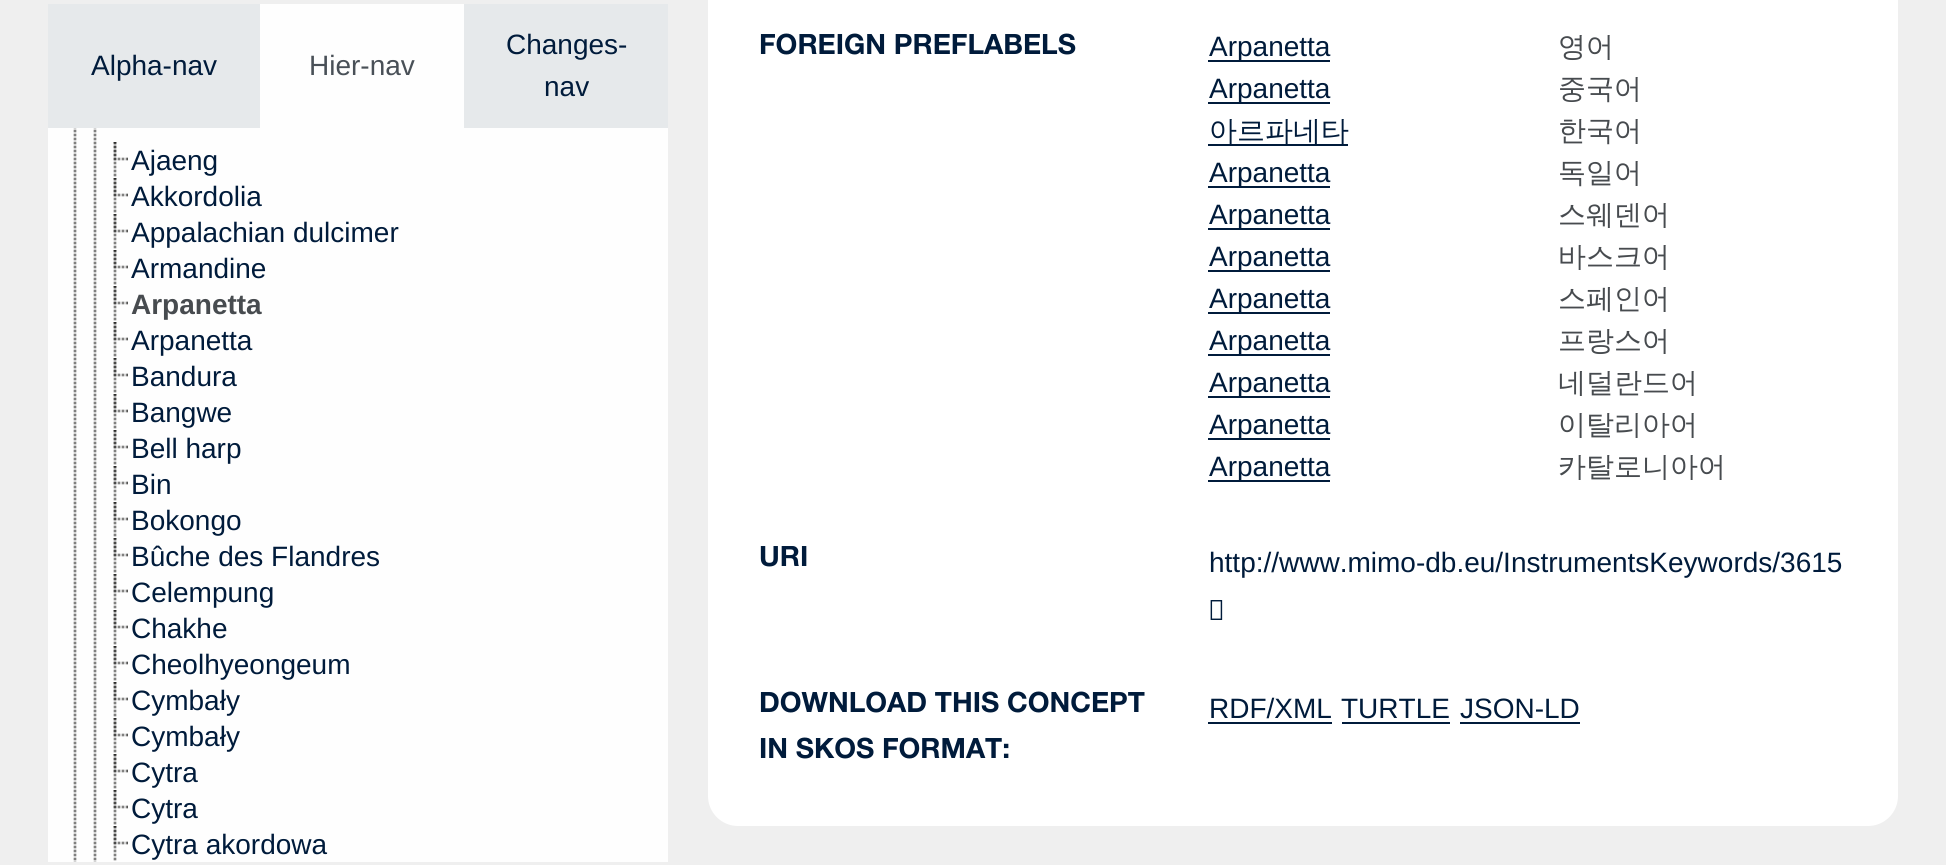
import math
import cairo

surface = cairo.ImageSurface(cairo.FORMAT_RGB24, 1946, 865)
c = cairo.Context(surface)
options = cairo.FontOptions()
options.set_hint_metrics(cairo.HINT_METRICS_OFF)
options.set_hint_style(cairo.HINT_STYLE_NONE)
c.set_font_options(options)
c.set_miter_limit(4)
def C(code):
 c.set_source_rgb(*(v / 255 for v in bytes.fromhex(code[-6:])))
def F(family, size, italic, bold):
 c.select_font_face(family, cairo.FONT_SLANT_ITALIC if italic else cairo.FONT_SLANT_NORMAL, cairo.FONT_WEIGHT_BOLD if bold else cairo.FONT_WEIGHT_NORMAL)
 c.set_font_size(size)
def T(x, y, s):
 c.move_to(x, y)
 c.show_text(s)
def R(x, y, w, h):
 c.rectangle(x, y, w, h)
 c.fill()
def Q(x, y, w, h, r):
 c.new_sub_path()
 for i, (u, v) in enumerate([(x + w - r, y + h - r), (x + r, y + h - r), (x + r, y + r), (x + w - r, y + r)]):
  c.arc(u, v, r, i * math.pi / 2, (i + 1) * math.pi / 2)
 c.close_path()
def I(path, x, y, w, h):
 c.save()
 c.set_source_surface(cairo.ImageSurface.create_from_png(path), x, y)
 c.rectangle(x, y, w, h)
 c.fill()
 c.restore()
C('efefef')
c.paint()
C('e6e9eb')
R(48,4,212,124)
F('Liberation Sans',28,0,0)
C('001b3b')
T(91,75,'Alpha-nav')
C('fefefe')
R(260,4,204,124)
C('495057')
T(309,75,'Hier-nav')
C('e6e9eb')
R(464,4,204,124)
C('001b3b')
T(506,54,'Changes-')
T(544,96,'nav')
C('fefefe')
R(48,128,620,734)
I('1.png',73,128,4,734)
I('1.png',93,128,4,734)
I('2.png',113,142,4,35)
I('3.png',113,142,15,19)
C('001b3b')
T(131,170,'Ajaeng')
I('2.png',113,178,4,35)
I('3.png',113,178,15,19)
T(131,206,'Akkordolia')
I('2.png',113,214,4,35)
I('3.png',113,214,15,19)
T(131,242,'Appalachian dulcimer')
I('2.png',113,250,4,35)
I('3.png',113,250,15,19)
T(131,278,'Armandine')
I('2.png',113,286,4,35)
I('3.png',113,286,15,19)
F('Liberation Sans',28,0,1)
C('474b4f')
T(131,314,'Arpanetta')
I('2.png',113,322,4,35)
I('3.png',113,322,15,19)
F('Liberation Sans',28,0,0)
C('001b3b')
T(131,350,'Arpanetta')
I('2.png',113,358,4,35)
I('3.png',113,358,15,19)
T(131,386,'Bandura')
I('2.png',113,394,4,35)
I('3.png',113,394,15,19)
T(131,422,'Bangwe')
I('2.png',113,430,4,35)
I('3.png',113,430,15,19)
T(131,458,'Bell harp')
I('2.png',113,466,4,35)
I('3.png',113,466,15,19)
T(131,494,'Bin')
I('2.png',113,502,4,35)
I('3.png',113,502,15,19)
T(131,530,'Bokongo')
I('2.png',113,538,4,35)
I('3.png',113,538,15,19)
T(131,566,'Bûche des Flandres')
I('2.png',113,574,4,35)
I('3.png',113,574,15,19)
T(131,602,'Celempung')
I('2.png',113,610,4,35)
I('3.png',113,610,15,19)
T(131,638,'Chakhe')
I('2.png',113,646,4,35)
I('3.png',113,646,15,19)
T(131,674,'Cheolhyeongeum')
I('2.png',113,682,4,35)
I('3.png',113,682,15,19)
T(131,710,'Cymbały')
I('2.png',113,718,4,35)
I('3.png',113,718,15,19)
T(131,746,'Cymbały')
I('2.png',113,754,4,35)
I('3.png',113,754,15,19)
T(131,782,'Cytra')
I('2.png',113,790,4,35)
I('3.png',113,790,15,19)
T(131,818,'Cytra')
I('2.png',113,826,4,35)
I('3.png',113,826,15,19)
T(131,854,'Cytra akordowa')
C('ffffff')
Q(708,-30,1190,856,30)
c.fill()
F('Helvetica Neue',28,0,1)
C('001b3b')
T(759,54,'FOREIGN PREFLABELS')
R(1208,60,122,2)
F('Liberation Sans',28,0,0)
T(1209,56,'Arpanetta')
F('WenQuanYi Zen Hei Medium',28,0,0)
C('474b4f')
T(1558,56,'영어')
C('001b3b')
R(1208,102,122,2)
F('Liberation Sans',28,0,0)
T(1209,98,'Arpanetta')
F('WenQuanYi Zen Hei Medium',28,0,0)
C('474b4f')
T(1558,98,'중국어')
C('001b3b')
T(1209,140,'아르파네타')
R(1208,144,140,2)
C('474b4f')
T(1558,140,'한국어')
C('001b3b')
R(1208,186,122,2)
F('Liberation Sans',28,0,0)
T(1209,182,'Arpanetta')
F('WenQuanYi Zen Hei Medium',28,0,0)
C('474b4f')
T(1558,182,'독일어')
C('001b3b')
R(1208,228,122,2)
F('Liberation Sans',28,0,0)
T(1209,224,'Arpanetta')
F('WenQuanYi Zen Hei Medium',28,0,0)
C('474b4f')
T(1558,224,'스웨덴어')
C('001b3b')
R(1208,270,122,2)
F('Liberation Sans',28,0,0)
T(1209,266,'Arpanetta')
F('WenQuanYi Zen Hei Medium',28,0,0)
C('474b4f')
T(1558,266,'바스크어')
C('001b3b')
R(1208,312,122,2)
F('Liberation Sans',28,0,0)
T(1209,308,'Arpanetta')
F('WenQuanYi Zen Hei Medium',28,0,0)
C('474b4f')
T(1558,308,'스페인어')
C('001b3b')
R(1208,354,122,2)
F('Liberation Sans',28,0,0)
T(1209,350,'Arpanetta')
F('WenQuanYi Zen Hei Medium',28,0,0)
C('474b4f')
T(1558,350,'프랑스어')
C('001b3b')
R(1208,396,122,2)
F('Liberation Sans',28,0,0)
T(1209,392,'Arpanetta')
F('WenQuanYi Zen Hei Medium',28,0,0)
C('474b4f')
T(1558,392,'네덜란드어')
C('001b3b')
R(1208,438,122,2)
F('Liberation Sans',28,0,0)
T(1209,434,'Arpanetta')
F('WenQuanYi Zen Hei Medium',28,0,0)
C('474b4f')
T(1558,434,'이탈리아어')
C('001b3b')
R(1208,480,122,2)
F('Liberation Sans',28,0,0)
T(1209,476,'Arpanetta')
F('WenQuanYi Zen Hei Medium',28,0,0)
C('474b4f')
T(1558,476,'카탈로니아어')
F('Helvetica Neue',28,0,1)
C('001b3b')
T(759,566,'URI')
F('Liberation Sans',28,0,0)
T(1209,572,'http://www.mimo-db.eu/InstrumentsKeywords/3615')
I('4.png',1210,600,13,20)
F('Helvetica Neue',28,0,1)
T(759,712,'DOWNLOAD THIS CONCEPT')
T(759,758,'IN SKOS FORMAT:')
F('Liberation Sans',28,0,0)
T(1209,718,'RDF/XML')
R(1208,722,124,2)
T(1341,718,'TURTLE')
R(1342,722,108,2)
T(1460,718,'JSON-LD')
R(1460,722,120,2)
surface.write_to_png('o.png')
